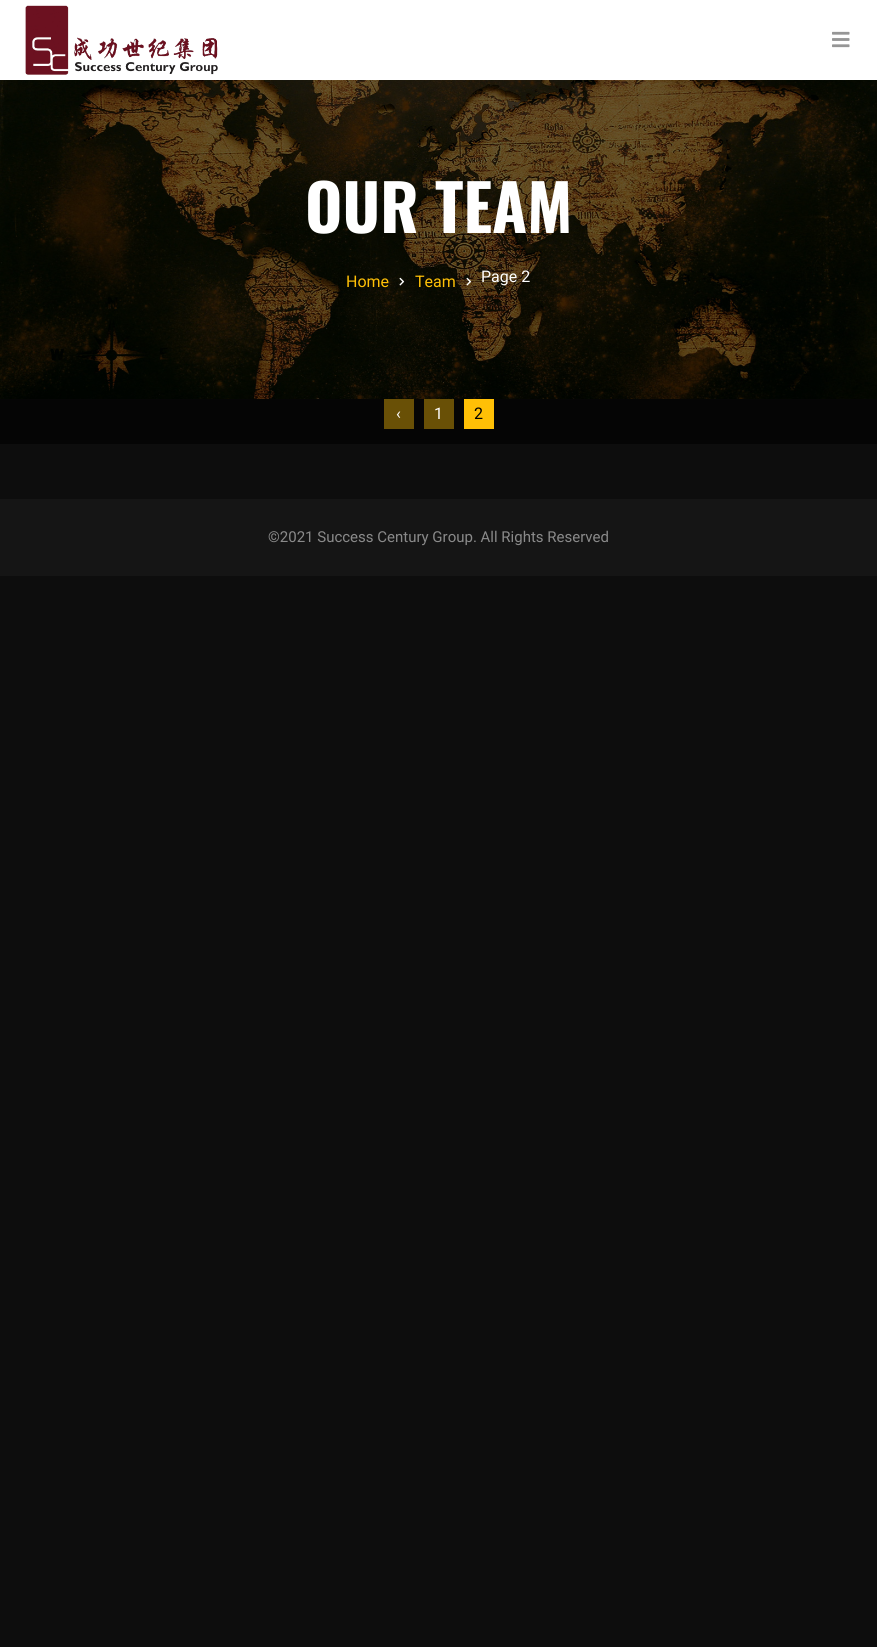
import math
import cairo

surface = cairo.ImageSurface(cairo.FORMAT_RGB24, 877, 1647)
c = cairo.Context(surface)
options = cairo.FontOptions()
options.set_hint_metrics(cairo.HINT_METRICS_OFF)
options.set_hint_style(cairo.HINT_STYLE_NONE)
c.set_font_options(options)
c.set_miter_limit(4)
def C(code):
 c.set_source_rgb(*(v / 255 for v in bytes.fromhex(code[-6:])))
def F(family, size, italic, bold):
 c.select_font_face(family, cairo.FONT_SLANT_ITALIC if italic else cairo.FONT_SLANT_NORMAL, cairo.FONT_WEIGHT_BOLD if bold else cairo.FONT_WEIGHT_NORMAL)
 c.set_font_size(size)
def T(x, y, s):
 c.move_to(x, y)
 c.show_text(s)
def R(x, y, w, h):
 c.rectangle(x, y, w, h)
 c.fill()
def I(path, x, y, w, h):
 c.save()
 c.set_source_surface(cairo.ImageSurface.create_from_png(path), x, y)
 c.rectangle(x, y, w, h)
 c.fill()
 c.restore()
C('0d0d0d')
c.paint()
C('ffffff')
R(0,0,877,80)
I('1.png',25,5,193,70)
I('2.png',832,31,18,17)
I('3.png',0,80,877,319)
c.set_source_rgba(0,0,0,0.6)
R(0,80,877,364)
F('Oswald',64,0,1)
C('ffffff')
T(305,233,'OUR TEAM')
F('Roboto',16,0,0)
C('ffc006')
T(346,287,'Home')
I('4.png',399,277,6,9)
T(415,287,'Team')
I('5.png',466,277,6,9)
C('ffffff')
T(481,282,'Page 2')
C('695006')
R(384,399,30,30)
C('ffffff')
T(396,419,'‹')
C('695006')
R(424,399,30,30)
C('ffffff')
T(434,419,'1')
C('ffc006')
R(464,399,30,30)
C('000000')
T(474,419,'2')
C('151515')
R(0,499,877,77)
F('Roboto',15,0,0)
C('8a8a8a')
T(268,542,'©2021 Success Century Group. All Rights Reserved')
surface.write_to_png('o.png')
